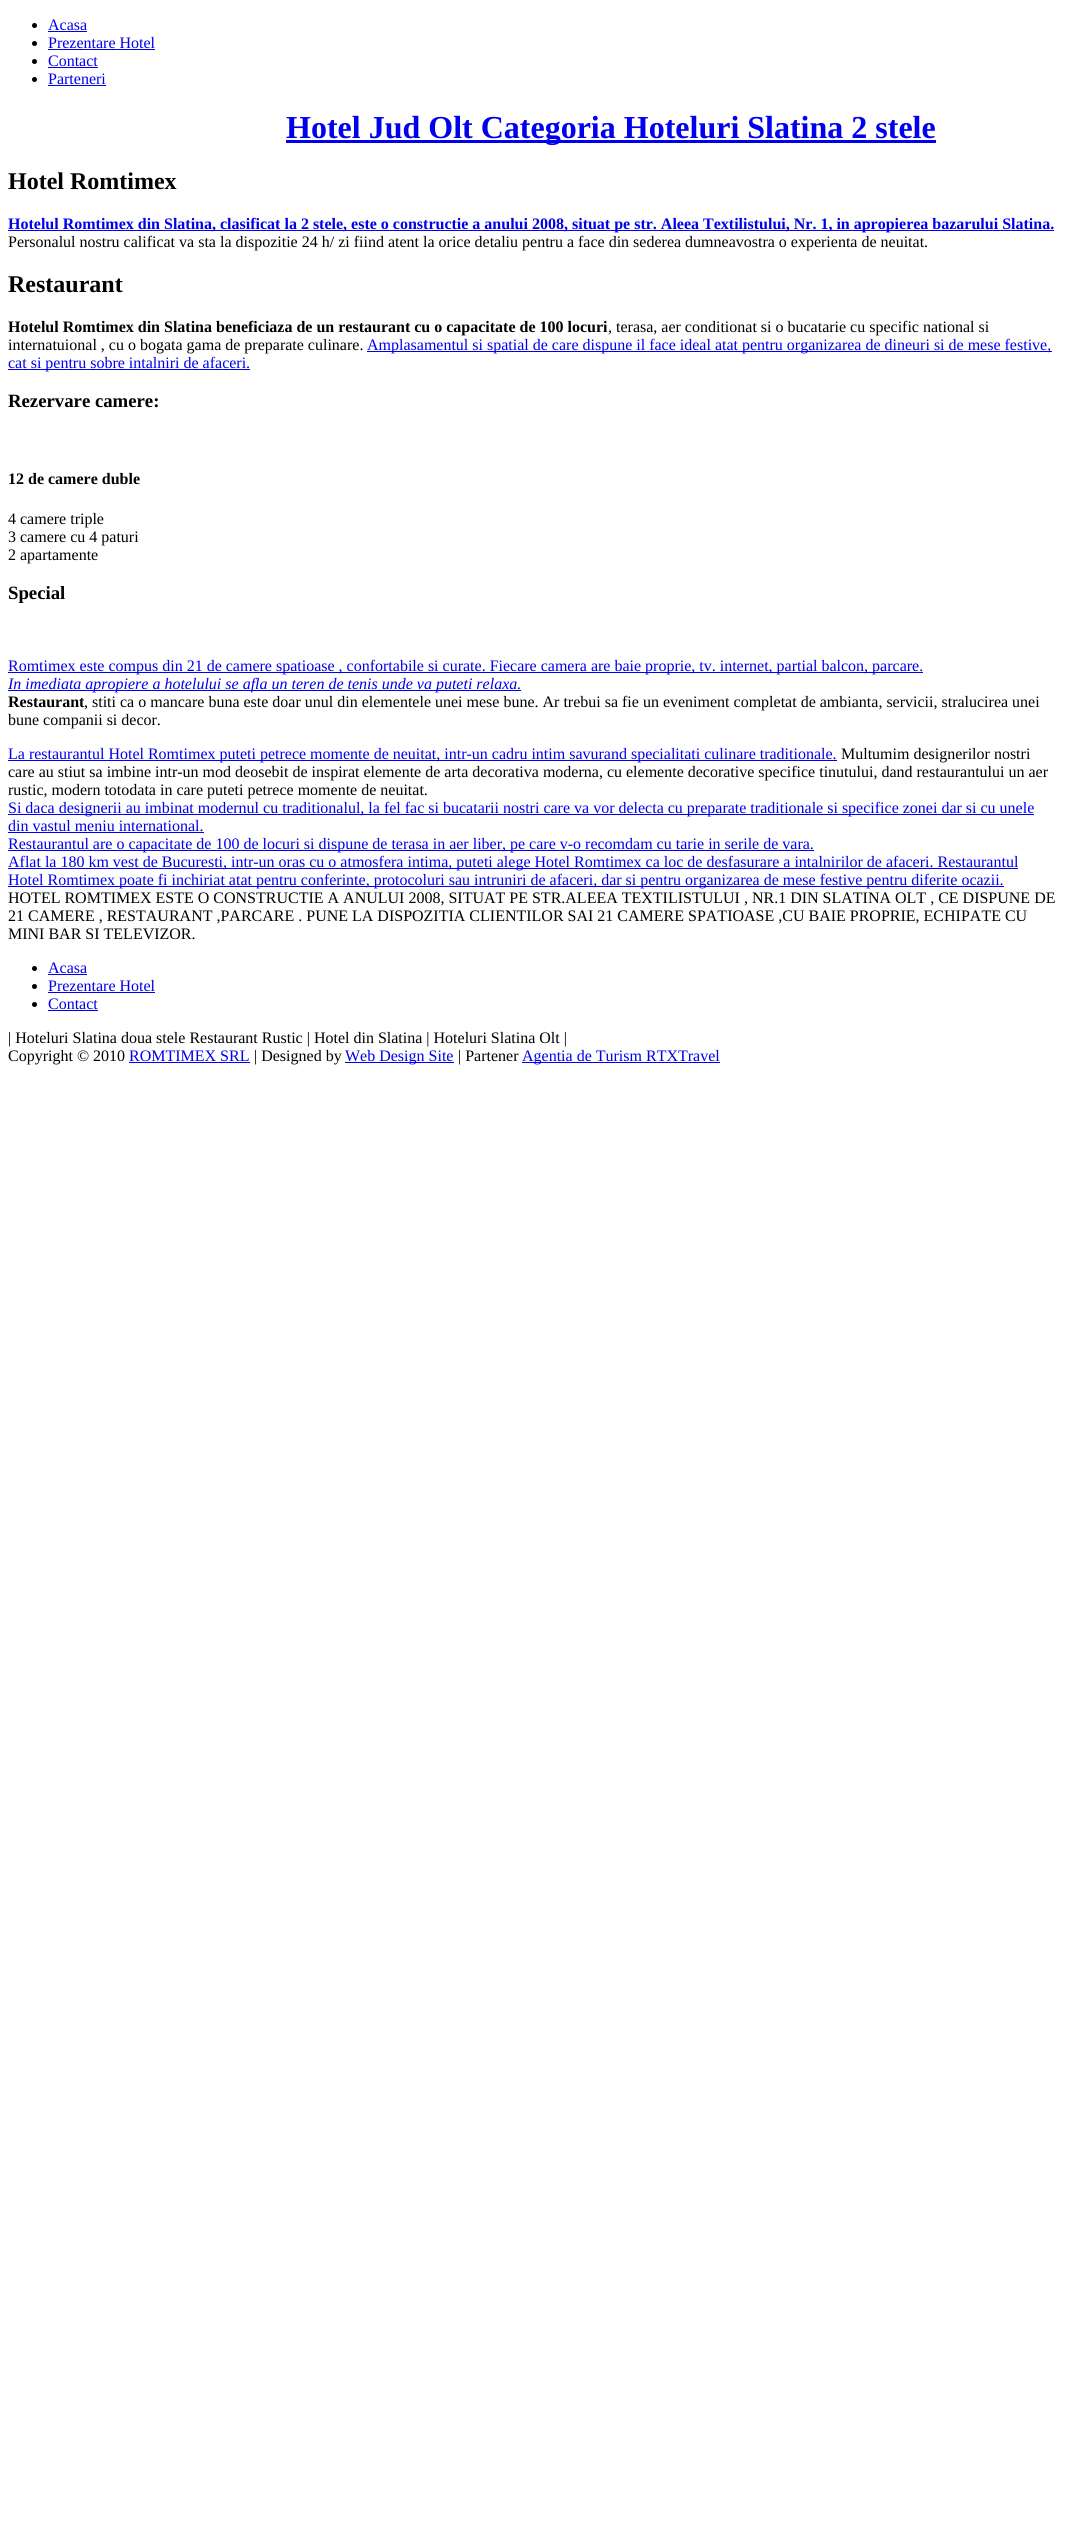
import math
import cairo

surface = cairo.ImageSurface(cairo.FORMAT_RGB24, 1065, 2525)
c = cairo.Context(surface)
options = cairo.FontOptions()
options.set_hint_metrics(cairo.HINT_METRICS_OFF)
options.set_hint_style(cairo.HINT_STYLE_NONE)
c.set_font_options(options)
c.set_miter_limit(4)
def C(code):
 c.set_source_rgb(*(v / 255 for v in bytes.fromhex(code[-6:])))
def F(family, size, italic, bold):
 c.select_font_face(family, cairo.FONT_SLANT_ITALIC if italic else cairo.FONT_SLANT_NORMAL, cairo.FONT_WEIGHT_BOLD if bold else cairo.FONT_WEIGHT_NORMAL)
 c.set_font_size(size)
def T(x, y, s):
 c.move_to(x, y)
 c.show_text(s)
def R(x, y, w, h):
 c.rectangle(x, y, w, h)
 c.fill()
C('ffffff')
c.paint()
C('000000')
c.arc(34.5,25.5,2.5,0,2 * math.pi)
c.fill()
F('Liberation Serif',16,0,0)
C('0000ee')
T(48,30,'Acasa')
R(48,31,39,1)
C('000000')
c.new_path()
c.arc(34.5,43.5,2.5,0,2 * math.pi)
c.fill()
C('0000ee')
T(48,48,'Prezentare Hotel')
R(48,49,107,1)
C('000000')
c.new_path()
c.arc(34.5,61.5,2.5,0,2 * math.pi)
c.fill()
C('0000ee')
T(48,66,'Contact')
R(48,67,50,1)
C('000000')
c.new_path()
c.arc(34.5,79.5,2.5,0,2 * math.pi)
c.fill()
C('0000ee')
T(48,84,'Parteneri')
R(48,85,58,1)
R(286,140,650,3)
F('Liberation Serif',32,0,1)
T(286,138,'Hotel Jud Olt Categoria Hoteluri Slatina 2 stele')
F('Liberation Serif',24,0,1)
C('000000')
T(8,189,'Hotel Romtimex')
C('0000ee')
R(8,230,1046,1)
F('Liberation Serif',16,0,1)
T(8,229,'Hotelul Romtimex din Slatina, clasificat la 2 stele, este o constructie a anului 2008, situat pe str. Aleea Textilistului, Nr. 1, in apropierea bazarului Slatina.')
F('Liberation Serif',16,0,0)
C('000000')
T(8,247,'Personalul nostru calificat va sta la dispozitie 24 h/ zi fiind atent la orice detaliu pentru a face din sederea dumneavostra o experienta de neuitat.')
F('Liberation Serif',24,0,1)
T(8,292,'Restaurant')
F('Liberation Serif',16,0,1)
T(8,332,'Hotelul Romtimex din Slatina beneficiaza de un restaurant cu o capacitate de 100 locuri')
F('Liberation Serif',16,0,0)
T(608,332,', terasa, aer conditionat si o bucatarie cu specific national si')
T(8,350,'internatuional , cu o bogata gama de preparate culinare.')
C('0000ee')
R(367,351,685,1)
T(367,350,'Amplasamentul si spatial de care dispune il face ideal atat pentru organizarea de dineuri si de mese festive,')
R(8,369,242,1)
T(8,368,'cat si pentru sobre intalniri de afaceri.')
F('Liberation Serif',18.75,0,1)
C('000000')
T(8,407,'Rezervare camere:')
F('Liberation Serif',16,0,1)
T(8,484,'12 de camere duble')
F('Liberation Serif',16,0,0)
T(8,524,'4 camere triple')
T(8,542,'3 camere cu 4 paturi')
T(8,560,'2 apartamente')
F('Liberation Serif',18.75,0,1)
T(8,599,'Special')
C('0000ee')
R(8,672,915,1)
F('Liberation Serif',16,0,0)
T(8,671,'Romtimex este compus din 21 de camere spatioase , confortabile si curate. Fiecare camera are baie proprie, tv. internet, partial balcon, parcare.')
R(8,690,513,1)
F('Liberation Serif',16,1,0)
T(8,689,'In imediata apropiere a hotelului se afla un teren de tenis unde va puteti relaxa.')
F('Liberation Serif',16,0,1)
C('000000')
T(8,707,'Restaurant')
F('Liberation Serif',16,0,0)
T(84,707,', stiti ca o mancare buna este doar unul din elementele unei mese bune. Ar trebui sa fie un eveniment completat de ambianta, servicii, stralucirea unei')
T(8,725,'bune companii si decor.')
C('0000ee')
R(8,760,829,1)
T(8,759,'La restaurantul Hotel Romtimex puteti petrece momente de neuitat, intr-un cadru intim savurand specialitati culinare traditionale.')
C('000000')
T(841,759,'Multumim designerilor nostri')
T(8,777,'care au stiut sa imbine intr-un mod deosebit de inspirat elemente de arta decorativa moderna, cu elemente decorative specifice tinutului, dand restaurantului un aer')
T(8,795,'rustic, modern totodata in care puteti petrece momente de neuitat.')
C('0000ee')
R(8,814,1026,1)
T(8,813,'Si daca designerii au imbinat modernul cu traditionalul, la fel fac si bucatarii nostri care va vor delecta cu preparate traditionale si specifice zonei dar si cu unele')
T(8,831,'din vastul meniu international.')
R(8,832,196,1)
R(8,850,806,1)
T(8,849,'Restaurantul are o capacitate de 100 de locuri si dispune de terasa in aer liber, pe care v-o recomdam cu tarie in serile de vara.')
R(8,868,1010,1)
T(8,867,'Aflat la 180 km vest de Bucuresti, intr-un oras cu o atmosfera intima, puteti alege Hotel Romtimex ca loc de desfasurare a intalnirilor de afaceri. Restaurantul')
R(8,886,996,1)
T(8,885,'Hotel Romtimex poate fi inchiriat atat pentru conferinte, protocoluri sau intruniri de afaceri, dar si pentru organizarea de mese festive pentru diferite ocazii.')
C('000000')
T(8,903,'HOTEL ROMTIMEX ESTE O CONSTRUCTIE A ANULUI 2008, SITUAT PE STR.ALEEA TEXTILISTULUI , NR.1 DIN SLATINA OLT , CE DISPUNE DE')
T(8,921,'21 CAMERE , RESTAURANT ,PARCARE . PUNE LA DISPOZITIA CLIENTILOR SAI 21 CAMERE SPATIOASE ,CU BAIE PROPRIE, ECHIPATE CU')
T(8,939,'MINI BAR SI TELEVIZOR.')
c.new_path()
c.arc(34.5,968.5,2.5,0,2 * math.pi)
c.fill()
C('0000ee')
T(48,973,'Acasa')
R(48,974,39,1)
C('000000')
c.new_path()
c.arc(34.5,986.5,2.5,0,2 * math.pi)
c.fill()
C('0000ee')
T(48,991,'Prezentare Hotel')
R(48,992,107,1)
C('000000')
c.new_path()
c.arc(34.5,1004.5,2.5,0,2 * math.pi)
c.fill()
C('0000ee')
T(48,1009,'Contact')
R(48,1010,50,1)
C('000000')
T(8,1043,'| Hoteluri Slatina doua stele Restaurant Rustic | Hotel din Slatina | Hoteluri Slatina Olt |')
T(8,1061,'Copyright © 2010')
C('0000ee')
T(129,1061,'ROMTIMEX SRL')
R(129,1062,121,1)
C('000000')
T(254,1061,'| Designed by')
C('0000ee')
R(345,1062,109,1)
T(345,1061,'Web Design Site')
C('000000')
T(458,1061,'| Partener')
C('0000ee')
R(522,1062,198,1)
T(522,1061,'Agentia de Turism RTXTravel')
surface.write_to_png('o.png')
